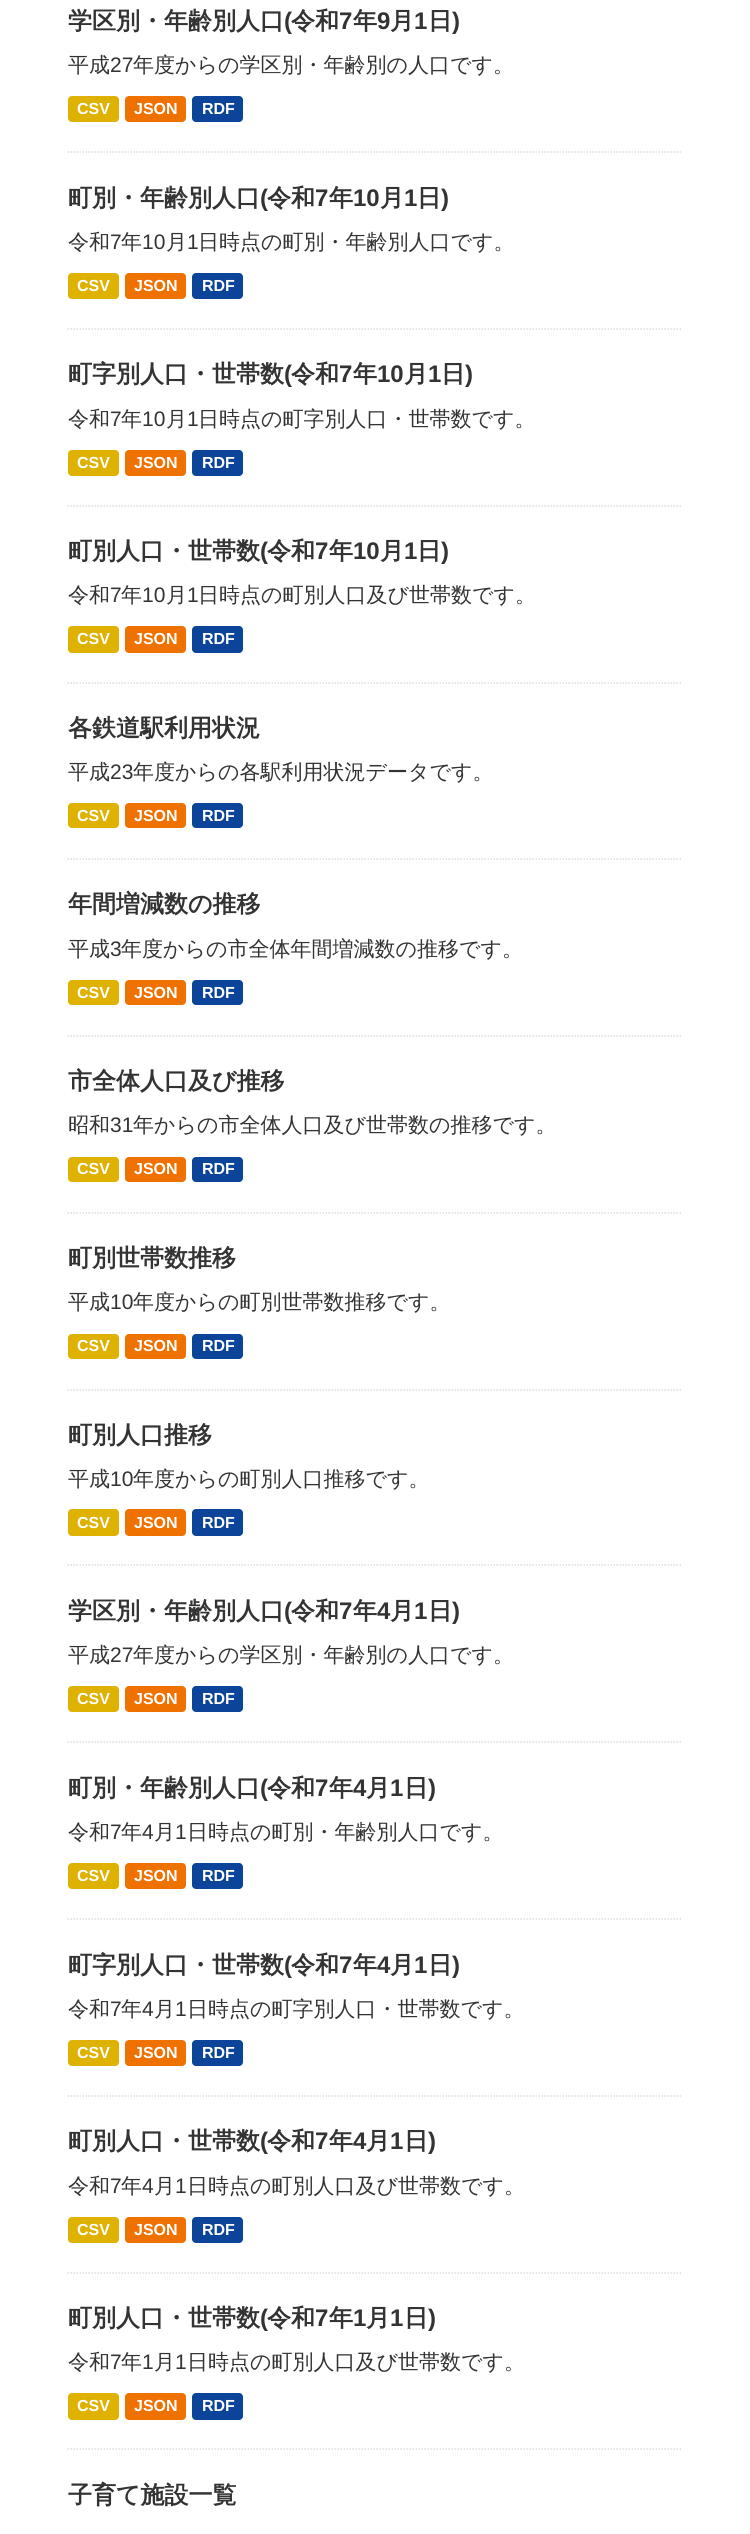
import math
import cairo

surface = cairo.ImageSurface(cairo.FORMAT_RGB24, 750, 2534)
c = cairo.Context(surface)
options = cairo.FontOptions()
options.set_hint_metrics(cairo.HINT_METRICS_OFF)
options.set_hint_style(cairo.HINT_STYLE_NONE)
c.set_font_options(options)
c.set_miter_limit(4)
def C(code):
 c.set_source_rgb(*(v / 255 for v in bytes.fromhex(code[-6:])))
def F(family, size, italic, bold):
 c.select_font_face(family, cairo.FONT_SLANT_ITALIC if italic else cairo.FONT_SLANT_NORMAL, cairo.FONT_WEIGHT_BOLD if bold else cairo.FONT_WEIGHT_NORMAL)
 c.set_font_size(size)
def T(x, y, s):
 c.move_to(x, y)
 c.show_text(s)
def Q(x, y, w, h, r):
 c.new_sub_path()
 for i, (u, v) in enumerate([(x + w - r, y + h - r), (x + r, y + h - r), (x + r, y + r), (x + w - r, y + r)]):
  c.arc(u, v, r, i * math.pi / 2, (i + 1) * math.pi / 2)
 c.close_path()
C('ffffff')
c.paint()
c.new_path()
c.move_to(67.5,152)
c.line_to(682.5,152)
C('dddddd')
c.set_line_width(1.5)
c.set_dash([1.5,1.5])
c.stroke()
F('WenQuanYi Zen Hei',24,0,1)
C('333333')
T(68,29,'学区別・年齢別人口')
F('Liberation Sans',24,0,1)
T(284,29,'(')
F('WenQuanYi Zen Hei',24,0,1)
T(291,29,'令和')
F('Liberation Sans',24,0,1)
T(339,29,'7')
F('WenQuanYi Zen Hei',24,0,1)
T(353,29,'年')
F('Liberation Sans',24,0,1)
T(377,29,'9')
F('WenQuanYi Zen Hei',24,0,1)
T(390,29,'月')
F('Liberation Sans',24,0,1)
T(414,29,'1')
F('WenQuanYi Zen Hei',24,0,1)
T(428,29,'日')
F('Liberation Sans',24,0,1)
T(452,29,')')
F('WenQuanYi Zen Hei Medium',21,0,0)
T(68,72,'平成')
F('Liberation Sans',21,0,0)
T(110,72,'27')
F('WenQuanYi Zen Hei Medium',21,0,0)
T(133,72,'年度からの学区別・年齢別の人口です。')
C('dfb100')
Q(68,96,51,26,4)
c.fill()
F('Liberation Sans',16,0,1)
C('ffffff')
T(77,114,'CSV')
C('ef7100')
Q(125,96,61,26,4)
c.fill()
C('ffffff')
T(134,114,'JSON')
C('0b4498')
Q(192,96,51,26,4)
c.fill()
C('ffffff')
T(202,114,'RDF')
c.new_path()
c.move_to(67.5,329)
c.line_to(682.5,329)
C('dddddd')
c.stroke()
F('WenQuanYi Zen Hei',24,0,1)
C('333333')
T(68,206,'町別・年齢別人口')
F('Liberation Sans',24,0,1)
T(260,206,'(')
F('WenQuanYi Zen Hei',24,0,1)
T(267,206,'令和')
F('Liberation Sans',24,0,1)
T(315,206,'7')
F('WenQuanYi Zen Hei',24,0,1)
T(329,206,'年')
F('Liberation Sans',24,0,1)
T(353,206,'10')
F('WenQuanYi Zen Hei',24,0,1)
T(380,206,'月')
F('Liberation Sans',24,0,1)
T(404,206,'1')
F('WenQuanYi Zen Hei',24,0,1)
T(417,206,'日')
F('Liberation Sans',24,0,1)
T(441,206,')')
F('WenQuanYi Zen Hei Medium',21,0,0)
T(68,249,'令和')
F('Liberation Sans',21,0,0)
T(110,249,'7')
F('WenQuanYi Zen Hei Medium',21,0,0)
T(121,249,'年')
F('Liberation Sans',21,0,0)
T(142,249,'10')
F('WenQuanYi Zen Hei Medium',21,0,0)
T(166,249,'月')
F('Liberation Sans',21,0,0)
T(187,249,'1')
F('WenQuanYi Zen Hei Medium',21,0,0)
T(198,249,'日時点の町別・年齢別人口です。')
C('dfb100')
Q(68,273,51,26,4)
c.fill()
F('Liberation Sans',16,0,1)
C('ffffff')
T(77,291,'CSV')
C('ef7100')
Q(125,273,61,26,4)
c.fill()
C('ffffff')
T(134,291,'JSON')
C('0b4498')
Q(192,273,51,26,4)
c.fill()
C('ffffff')
T(202,291,'RDF')
c.new_path()
c.move_to(67.5,506)
c.line_to(682.5,506)
C('dddddd')
c.stroke()
F('WenQuanYi Zen Hei',24,0,1)
C('333333')
T(68,382,'町字別人口・世帯数')
F('Liberation Sans',24,0,1)
T(284,382,'(')
F('WenQuanYi Zen Hei',24,0,1)
T(291,382,'令和')
F('Liberation Sans',24,0,1)
T(339,382,'7')
F('WenQuanYi Zen Hei',24,0,1)
T(353,382,'年')
F('Liberation Sans',24,0,1)
T(377,382,'10')
F('WenQuanYi Zen Hei',24,0,1)
T(404,382,'月')
F('Liberation Sans',24,0,1)
T(428,382,'1')
F('WenQuanYi Zen Hei',24,0,1)
T(441,382,'日')
F('Liberation Sans',24,0,1)
T(465,382,')')
F('WenQuanYi Zen Hei Medium',21,0,0)
T(68,426,'令和')
F('Liberation Sans',21,0,0)
T(110,426,'7')
F('WenQuanYi Zen Hei Medium',21,0,0)
T(121,426,'年')
F('Liberation Sans',21,0,0)
T(142,426,'10')
F('WenQuanYi Zen Hei Medium',21,0,0)
T(166,426,'月')
F('Liberation Sans',21,0,0)
T(187,426,'1')
F('WenQuanYi Zen Hei Medium',21,0,0)
T(198,426,'日時点の町字別人口・世帯数です。')
C('dfb100')
Q(68,450,51,26,4)
c.fill()
F('Liberation Sans',16,0,1)
C('ffffff')
T(77,468,'CSV')
C('ef7100')
Q(125,450,61,26,4)
c.fill()
C('ffffff')
T(134,468,'JSON')
C('0b4498')
Q(192,450,51,26,4)
c.fill()
C('ffffff')
T(202,468,'RDF')
c.new_path()
c.move_to(67.5,683)
c.line_to(682.5,683)
C('dddddd')
c.stroke()
F('WenQuanYi Zen Hei',24,0,1)
C('333333')
T(68,559,'町別人口・世帯数')
F('Liberation Sans',24,0,1)
T(260,559,'(')
F('WenQuanYi Zen Hei',24,0,1)
T(267,559,'令和')
F('Liberation Sans',24,0,1)
T(315,559,'7')
F('WenQuanYi Zen Hei',24,0,1)
T(329,559,'年')
F('Liberation Sans',24,0,1)
T(353,559,'10')
F('WenQuanYi Zen Hei',24,0,1)
T(380,559,'月')
F('Liberation Sans',24,0,1)
T(404,559,'1')
F('WenQuanYi Zen Hei',24,0,1)
T(417,559,'日')
F('Liberation Sans',24,0,1)
T(441,559,')')
F('WenQuanYi Zen Hei Medium',21,0,0)
T(68,602,'令和')
F('Liberation Sans',21,0,0)
T(110,602,'7')
F('WenQuanYi Zen Hei Medium',21,0,0)
T(121,602,'年')
F('Liberation Sans',21,0,0)
T(142,602,'10')
F('WenQuanYi Zen Hei Medium',21,0,0)
T(166,602,'月')
F('Liberation Sans',21,0,0)
T(187,602,'1')
F('WenQuanYi Zen Hei Medium',21,0,0)
T(198,602,'日時点の町別人口及び世帯数です。')
C('dfb100')
Q(68,626,51,27,4)
c.fill()
F('Liberation Sans',16,0,1)
C('ffffff')
T(77,644,'CSV')
C('ef7100')
Q(125,626,61,27,4)
c.fill()
C('ffffff')
T(134,644,'JSON')
C('0b4498')
Q(192,626,51,27,4)
c.fill()
C('ffffff')
T(202,644,'RDF')
c.new_path()
c.move_to(67.5,859)
c.line_to(682.5,859)
C('dddddd')
c.stroke()
F('WenQuanYi Zen Hei',24,0,1)
C('333333')
T(68,736,'各鉄道駅利用状況')
F('WenQuanYi Zen Hei Medium',21,0,0)
T(68,779,'平成')
F('Liberation Sans',21,0,0)
T(110,779,'23')
F('WenQuanYi Zen Hei Medium',21,0,0)
T(133,779,'年度からの各駅利用状況データです。')
C('dfb100')
Q(68,803,51,25,4)
c.fill()
F('Liberation Sans',16,0,1)
C('ffffff')
T(77,821,'CSV')
C('ef7100')
Q(125,803,61,25,4)
c.fill()
C('ffffff')
T(134,821,'JSON')
C('0b4498')
Q(192,803,51,25,4)
c.fill()
C('ffffff')
T(202,821,'RDF')
c.new_path()
c.move_to(67.5,1036)
c.line_to(682.5,1036)
C('dddddd')
c.stroke()
F('WenQuanYi Zen Hei',24,0,1)
C('333333')
T(68,912,'年間増減数の推移')
F('WenQuanYi Zen Hei Medium',21,0,0)
T(68,956,'平成')
F('Liberation Sans',21,0,0)
T(110,956,'3')
F('WenQuanYi Zen Hei Medium',21,0,0)
T(121,956,'年度からの市全体年間増減数の推移です。')
C('dfb100')
Q(68,980,51,25,4)
c.fill()
F('Liberation Sans',16,0,1)
C('ffffff')
T(77,998,'CSV')
C('ef7100')
Q(125,980,61,25,4)
c.fill()
C('ffffff')
T(134,998,'JSON')
C('0b4498')
Q(192,980,51,25,4)
c.fill()
C('ffffff')
T(202,998,'RDF')
c.new_path()
c.move_to(67.5,1213)
c.line_to(682.5,1213)
C('dddddd')
c.stroke()
F('WenQuanYi Zen Hei',24,0,1)
C('333333')
T(68,1089,'市全体人口及び推移')
F('WenQuanYi Zen Hei Medium',21,0,0)
T(68,1132,'昭和')
F('Liberation Sans',21,0,0)
T(110,1132,'31')
F('WenQuanYi Zen Hei Medium',21,0,0)
T(133,1132,'年からの市全体人口及び世帯数の推移です。')
C('dfb100')
Q(68,1157,51,25,4)
c.fill()
F('Liberation Sans',16,0,1)
C('ffffff')
T(77,1174,'CSV')
C('ef7100')
Q(125,1157,61,25,4)
c.fill()
C('ffffff')
T(134,1174,'JSON')
C('0b4498')
Q(192,1157,51,25,4)
c.fill()
C('ffffff')
T(202,1174,'RDF')
c.new_path()
c.move_to(67.5,1390)
c.line_to(682.5,1390)
C('dddddd')
c.stroke()
F('WenQuanYi Zen Hei',24,0,1)
C('333333')
T(68,1266,'町別世帯数推移')
F('WenQuanYi Zen Hei Medium',21,0,0)
T(68,1309,'平成')
F('Liberation Sans',21,0,0)
T(110,1309,'10')
F('WenQuanYi Zen Hei Medium',21,0,0)
T(133,1309,'年度からの町別世帯数推移です。')
C('dfb100')
Q(68,1334,51,25,4)
c.fill()
F('Liberation Sans',16,0,1)
C('ffffff')
T(77,1351,'CSV')
C('ef7100')
Q(125,1334,61,25,4)
c.fill()
C('ffffff')
T(134,1351,'JSON')
C('0b4498')
Q(192,1334,51,25,4)
c.fill()
C('ffffff')
T(202,1351,'RDF')
c.new_path()
c.move_to(67.5,1565)
c.line_to(682.5,1565)
C('dddddd')
c.stroke()
F('WenQuanYi Zen Hei',24,0,1)
C('333333')
T(68,1443,'町別人口推移')
F('WenQuanYi Zen Hei Medium',21,0,0)
T(68,1486,'平成')
F('Liberation Sans',21,0,0)
T(110,1486,'10')
F('WenQuanYi Zen Hei Medium',21,0,0)
T(133,1486,'年度からの町別人口推移です。')
C('dfb100')
Q(68,1509,51,27,4)
c.fill()
F('Liberation Sans',16,0,1)
C('ffffff')
T(77,1528,'CSV')
C('ef7100')
Q(125,1509,61,27,4)
c.fill()
C('ffffff')
T(134,1528,'JSON')
C('0b4498')
Q(192,1509,51,27,4)
c.fill()
C('ffffff')
T(202,1528,'RDF')
c.new_path()
c.move_to(67.5,1742)
c.line_to(682.5,1742)
C('dddddd')
c.stroke()
F('WenQuanYi Zen Hei',24,0,1)
C('333333')
T(68,1619,'学区別・年齢別人口')
F('Liberation Sans',24,0,1)
T(284,1619,'(')
F('WenQuanYi Zen Hei',24,0,1)
T(291,1619,'令和')
F('Liberation Sans',24,0,1)
T(339,1619,'7')
F('WenQuanYi Zen Hei',24,0,1)
T(353,1619,'年')
F('Liberation Sans',24,0,1)
T(377,1619,'4')
F('WenQuanYi Zen Hei',24,0,1)
T(390,1619,'月')
F('Liberation Sans',24,0,1)
T(414,1619,'1')
F('WenQuanYi Zen Hei',24,0,1)
T(428,1619,'日')
F('Liberation Sans',24,0,1)
T(452,1619,')')
F('WenQuanYi Zen Hei Medium',21,0,0)
T(68,1662,'平成')
F('Liberation Sans',21,0,0)
T(110,1662,'27')
F('WenQuanYi Zen Hei Medium',21,0,0)
T(133,1662,'年度からの学区別・年齢別の人口です。')
C('dfb100')
Q(68,1686,51,26,4)
c.fill()
F('Liberation Sans',16,0,1)
C('ffffff')
T(77,1704,'CSV')
C('ef7100')
Q(125,1686,61,26,4)
c.fill()
C('ffffff')
T(134,1704,'JSON')
C('0b4498')
Q(192,1686,51,26,4)
c.fill()
C('ffffff')
T(202,1704,'RDF')
c.new_path()
c.move_to(67.5,1919)
c.line_to(682.5,1919)
C('dddddd')
c.stroke()
F('WenQuanYi Zen Hei',24,0,1)
C('333333')
T(68,1796,'町別・年齢別人口')
F('Liberation Sans',24,0,1)
T(260,1796,'(')
F('WenQuanYi Zen Hei',24,0,1)
T(267,1796,'令和')
F('Liberation Sans',24,0,1)
T(315,1796,'7')
F('WenQuanYi Zen Hei',24,0,1)
T(329,1796,'年')
F('Liberation Sans',24,0,1)
T(353,1796,'4')
F('WenQuanYi Zen Hei',24,0,1)
T(366,1796,'月')
F('Liberation Sans',24,0,1)
T(390,1796,'1')
F('WenQuanYi Zen Hei',24,0,1)
T(404,1796,'日')
F('Liberation Sans',24,0,1)
T(428,1796,')')
F('WenQuanYi Zen Hei Medium',21,0,0)
T(68,1839,'令和')
F('Liberation Sans',21,0,0)
T(110,1839,'7')
F('WenQuanYi Zen Hei Medium',21,0,0)
T(121,1839,'年')
F('Liberation Sans',21,0,0)
T(142,1839,'4')
F('WenQuanYi Zen Hei Medium',21,0,0)
T(154,1839,'月')
F('Liberation Sans',21,0,0)
T(175,1839,'1')
F('WenQuanYi Zen Hei Medium',21,0,0)
T(187,1839,'日時点の町別・年齢別人口です。')
C('dfb100')
Q(68,1863,51,26,4)
c.fill()
F('Liberation Sans',16,0,1)
C('ffffff')
T(77,1881,'CSV')
C('ef7100')
Q(125,1863,61,26,4)
c.fill()
C('ffffff')
T(134,1881,'JSON')
C('0b4498')
Q(192,1863,51,26,4)
c.fill()
C('ffffff')
T(202,1881,'RDF')
c.new_path()
c.move_to(67.5,2096)
c.line_to(682.5,2096)
C('dddddd')
c.stroke()
F('WenQuanYi Zen Hei',24,0,1)
C('333333')
T(68,1973,'町字別人口・世帯数')
F('Liberation Sans',24,0,1)
T(284,1973,'(')
F('WenQuanYi Zen Hei',24,0,1)
T(291,1973,'令和')
F('Liberation Sans',24,0,1)
T(339,1973,'7')
F('WenQuanYi Zen Hei',24,0,1)
T(353,1973,'年')
F('Liberation Sans',24,0,1)
T(377,1973,'4')
F('WenQuanYi Zen Hei',24,0,1)
T(390,1973,'月')
F('Liberation Sans',24,0,1)
T(414,1973,'1')
F('WenQuanYi Zen Hei',24,0,1)
T(428,1973,'日')
F('Liberation Sans',24,0,1)
T(452,1973,')')
F('WenQuanYi Zen Hei Medium',21,0,0)
T(68,2016,'令和')
F('Liberation Sans',21,0,0)
T(110,2016,'7')
F('WenQuanYi Zen Hei Medium',21,0,0)
T(121,2016,'年')
F('Liberation Sans',21,0,0)
T(142,2016,'4')
F('WenQuanYi Zen Hei Medium',21,0,0)
T(154,2016,'月')
F('Liberation Sans',21,0,0)
T(175,2016,'1')
F('WenQuanYi Zen Hei Medium',21,0,0)
T(187,2016,'日時点の町字別人口・世帯数です。')
C('dfb100')
Q(68,2040,51,26,4)
c.fill()
F('Liberation Sans',16,0,1)
C('ffffff')
T(77,2058,'CSV')
C('ef7100')
Q(125,2040,61,26,4)
c.fill()
C('ffffff')
T(134,2058,'JSON')
C('0b4498')
Q(192,2040,51,26,4)
c.fill()
C('ffffff')
T(202,2058,'RDF')
c.new_path()
c.move_to(67.5,2273)
c.line_to(682.5,2273)
C('dddddd')
c.stroke()
F('WenQuanYi Zen Hei',24,0,1)
C('333333')
T(68,2149,'町別人口・世帯数')
F('Liberation Sans',24,0,1)
T(260,2149,'(')
F('WenQuanYi Zen Hei',24,0,1)
T(267,2149,'令和')
F('Liberation Sans',24,0,1)
T(315,2149,'7')
F('WenQuanYi Zen Hei',24,0,1)
T(329,2149,'年')
F('Liberation Sans',24,0,1)
T(353,2149,'4')
F('WenQuanYi Zen Hei',24,0,1)
T(366,2149,'月')
F('Liberation Sans',24,0,1)
T(390,2149,'1')
F('WenQuanYi Zen Hei',24,0,1)
T(404,2149,'日')
F('Liberation Sans',24,0,1)
T(428,2149,')')
F('WenQuanYi Zen Hei Medium',21,0,0)
T(68,2193,'令和')
F('Liberation Sans',21,0,0)
T(110,2193,'7')
F('WenQuanYi Zen Hei Medium',21,0,0)
T(121,2193,'年')
F('Liberation Sans',21,0,0)
T(142,2193,'4')
F('WenQuanYi Zen Hei Medium',21,0,0)
T(154,2193,'月')
F('Liberation Sans',21,0,0)
T(175,2193,'1')
F('WenQuanYi Zen Hei Medium',21,0,0)
T(187,2193,'日時点の町別人口及び世帯数です。')
C('dfb100')
Q(68,2217,51,26,4)
c.fill()
F('Liberation Sans',16,0,1)
C('ffffff')
T(77,2235,'CSV')
C('ef7100')
Q(125,2217,61,26,4)
c.fill()
C('ffffff')
T(134,2235,'JSON')
C('0b4498')
Q(192,2217,51,26,4)
c.fill()
C('ffffff')
T(202,2235,'RDF')
c.new_path()
c.move_to(67.5,2449)
c.line_to(682.5,2449)
C('dddddd')
c.stroke()
F('WenQuanYi Zen Hei',24,0,1)
C('333333')
T(68,2326,'町別人口・世帯数')
F('Liberation Sans',24,0,1)
T(260,2326,'(')
F('WenQuanYi Zen Hei',24,0,1)
T(267,2326,'令和')
F('Liberation Sans',24,0,1)
T(315,2326,'7')
F('WenQuanYi Zen Hei',24,0,1)
T(329,2326,'年')
F('Liberation Sans',24,0,1)
T(353,2326,'1')
F('WenQuanYi Zen Hei',24,0,1)
T(366,2326,'月')
F('Liberation Sans',24,0,1)
T(390,2326,'1')
F('WenQuanYi Zen Hei',24,0,1)
T(404,2326,'日')
F('Liberation Sans',24,0,1)
T(428,2326,')')
F('WenQuanYi Zen Hei Medium',21,0,0)
T(68,2369,'令和')
F('Liberation Sans',21,0,0)
T(110,2369,'7')
F('WenQuanYi Zen Hei Medium',21,0,0)
T(121,2369,'年')
F('Liberation Sans',21,0,0)
T(142,2369,'1')
F('WenQuanYi Zen Hei Medium',21,0,0)
T(154,2369,'月')
F('Liberation Sans',21,0,0)
T(175,2369,'1')
F('WenQuanYi Zen Hei Medium',21,0,0)
T(187,2369,'日時点の町別人口及び世帯数です。')
C('dfb100')
Q(68,2393,51,27,4)
c.fill()
F('Liberation Sans',16,0,1)
C('ffffff')
T(77,2411,'CSV')
C('ef7100')
Q(125,2393,61,27,4)
c.fill()
C('ffffff')
T(134,2411,'JSON')
C('0b4498')
Q(192,2393,51,27,4)
c.fill()
C('ffffff')
T(202,2411,'RDF')
F('WenQuanYi Zen Hei',24,0,1)
C('333333')
T(68,2503,'子育て施設一覧')
surface.write_to_png('o.png')
